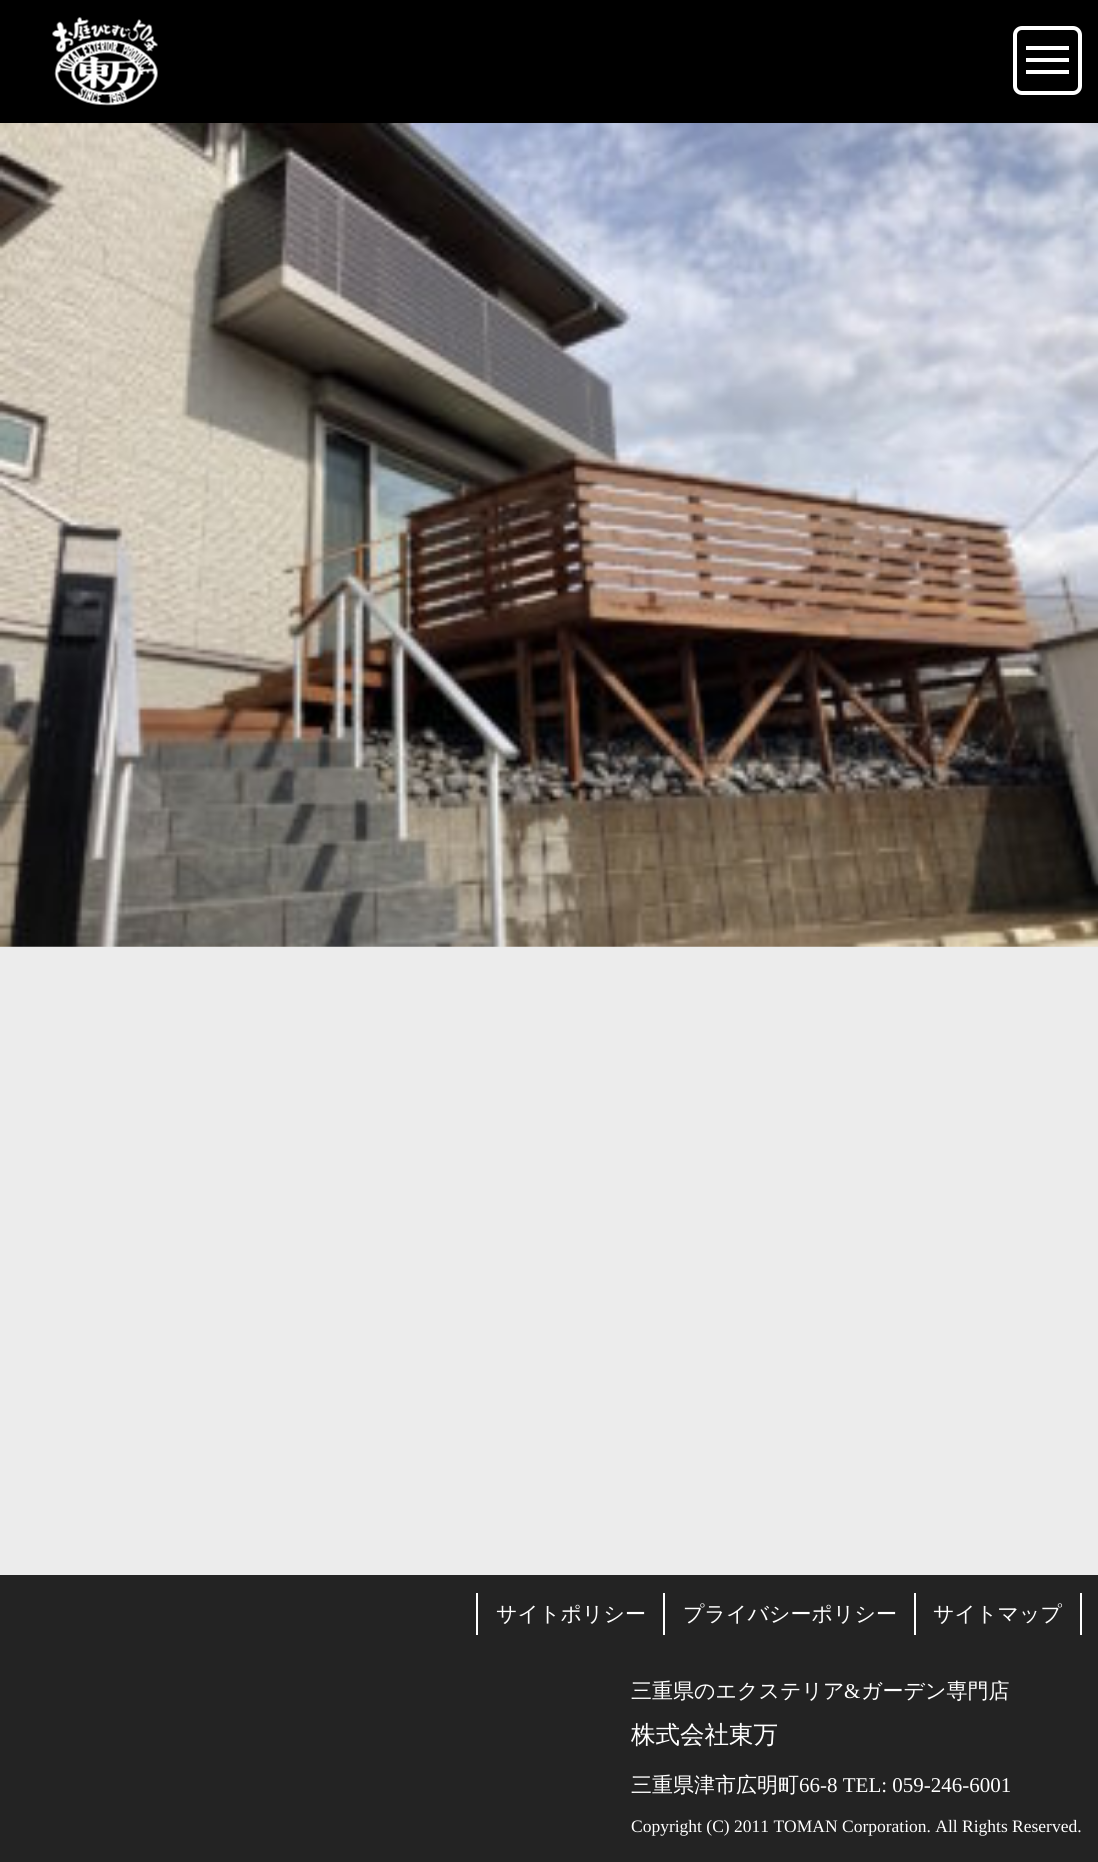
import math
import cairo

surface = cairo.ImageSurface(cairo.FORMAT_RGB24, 1098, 1862)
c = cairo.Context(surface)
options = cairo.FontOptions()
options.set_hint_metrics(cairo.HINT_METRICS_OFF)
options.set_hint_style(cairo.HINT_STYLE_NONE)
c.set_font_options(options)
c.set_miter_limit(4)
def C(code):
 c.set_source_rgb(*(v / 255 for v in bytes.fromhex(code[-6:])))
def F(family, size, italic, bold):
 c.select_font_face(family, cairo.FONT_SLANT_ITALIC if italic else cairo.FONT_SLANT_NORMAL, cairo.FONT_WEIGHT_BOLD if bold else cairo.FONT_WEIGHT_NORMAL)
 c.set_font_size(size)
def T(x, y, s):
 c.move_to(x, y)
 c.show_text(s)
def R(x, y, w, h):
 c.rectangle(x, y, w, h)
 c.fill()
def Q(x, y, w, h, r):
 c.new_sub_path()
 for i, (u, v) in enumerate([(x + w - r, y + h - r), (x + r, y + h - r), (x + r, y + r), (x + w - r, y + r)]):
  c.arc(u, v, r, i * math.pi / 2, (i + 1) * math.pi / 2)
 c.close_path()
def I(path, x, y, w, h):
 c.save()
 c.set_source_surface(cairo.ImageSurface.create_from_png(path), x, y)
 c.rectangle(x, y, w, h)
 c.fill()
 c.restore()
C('ececec')
c.paint()
C('000000')
R(0,0,1098,123)
I('1.png',52,17,106,89)
Q(1015,28,65,65,7)
C('ffffff')
c.set_line_width(4)
c.stroke()
R(1026,46,43,4)
R(1026,58,43,4)
R(1026,70,43,4)
I('2.png',0,123,1098,824)
C('232323')
R(0,1575,1098,287)
C('ffffff')
R(476,1593,2,42)
R(663,1593,2,42)
F('WenQuanYi Zen Hei Medium',21,0,0)
T(496,1621,'サイトポリシー')
R(914,1593,2,42)
T(683,1621,'プライバシーポリシー')
R(1080,1593,2,42)
T(933,1621,'サイトマップ')
T(631,1698,'三重県のエクステリア')
F('Liberation Serif',21,0,0)
T(844,1698,'&')
F('WenQuanYi Zen Hei Medium',21,0,0)
T(861,1698,'ガーデン専門店')
F('WenQuanYi Zen Hei Medium',24.5,0,0)
T(631,1743,'株式会社東万')
F('WenQuanYi Zen Hei Medium',21,0,0)
T(631,1792,'三重県津市広明町')
F('Liberation Serif',21,0,0)
T(799,1792,'66-8 TEL: 059-246-6001')
F('Liberation Serif',17.5,0,0)
T(631,1832,'Copyright (C) 2011 TOMAN Corporation. All Rights Reserved.')
surface.write_to_png('o.png')
